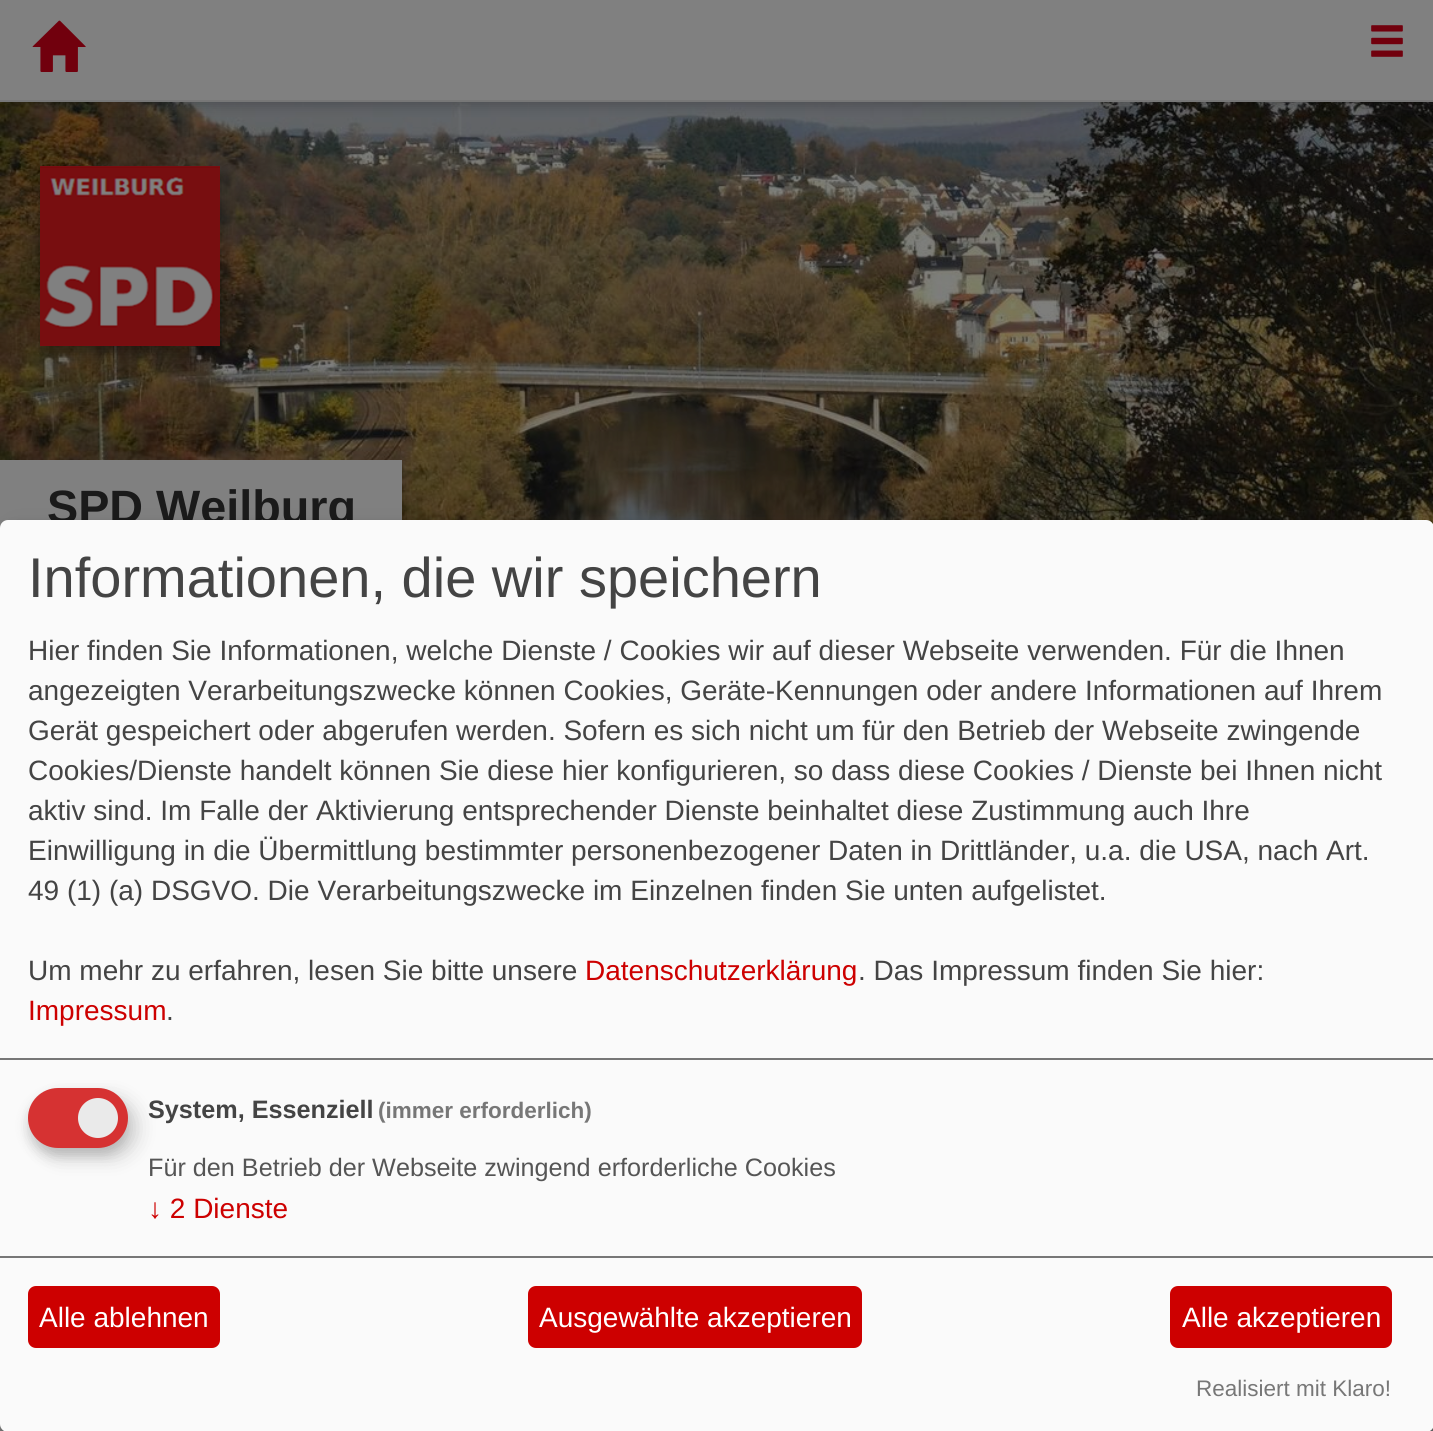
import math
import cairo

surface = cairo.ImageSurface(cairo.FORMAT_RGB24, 1433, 1431)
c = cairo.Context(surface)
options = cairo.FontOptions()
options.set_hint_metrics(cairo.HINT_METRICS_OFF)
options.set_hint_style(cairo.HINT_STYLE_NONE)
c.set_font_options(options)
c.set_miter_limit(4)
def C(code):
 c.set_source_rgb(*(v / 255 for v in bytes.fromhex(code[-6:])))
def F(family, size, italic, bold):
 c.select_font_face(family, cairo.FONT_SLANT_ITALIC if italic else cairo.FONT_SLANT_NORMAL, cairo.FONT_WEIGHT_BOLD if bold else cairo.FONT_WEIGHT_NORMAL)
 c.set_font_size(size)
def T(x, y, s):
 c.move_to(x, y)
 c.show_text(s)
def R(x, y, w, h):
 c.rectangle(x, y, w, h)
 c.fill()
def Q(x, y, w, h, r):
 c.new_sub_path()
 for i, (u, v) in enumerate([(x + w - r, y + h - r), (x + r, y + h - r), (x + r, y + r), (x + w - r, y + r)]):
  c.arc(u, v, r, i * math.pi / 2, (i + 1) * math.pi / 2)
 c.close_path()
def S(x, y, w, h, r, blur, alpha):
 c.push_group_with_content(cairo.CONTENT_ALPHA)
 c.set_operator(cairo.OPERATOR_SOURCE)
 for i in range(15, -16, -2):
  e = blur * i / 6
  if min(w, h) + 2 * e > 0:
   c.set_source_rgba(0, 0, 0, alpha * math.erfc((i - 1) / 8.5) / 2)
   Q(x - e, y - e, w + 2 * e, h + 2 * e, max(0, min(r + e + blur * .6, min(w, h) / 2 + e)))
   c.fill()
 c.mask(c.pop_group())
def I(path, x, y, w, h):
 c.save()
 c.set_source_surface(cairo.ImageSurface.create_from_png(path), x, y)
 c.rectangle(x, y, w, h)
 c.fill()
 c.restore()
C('808080')
c.paint()
I('3.png',0,102,1433,423)
C('000000')
S(0,4,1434,102,0,6,.2)
C('808080')
R(0,0,1433,100)
C('777777')
R(0,100,1433,2)
I('1.png',32,20,54,52)
I('2.png',1371,25,32,32)
C('000000')
S(42,178,176,176,0,8,.4)
I('4.png',40,166,180,180)
S(2,472,398,94,0,8,.4)
C('808080')
R(0,460,402,68)
F('Liberation Sans',46.75,0,1)
C('1a1a1a')
T(47,523,'SPD Weilburg')
C('000000')
S(10,530,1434,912,8,10,.19)
S(0,528,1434,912,8,6,.2)
C('fafafa')
Q(0,520,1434,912,8)
c.fill()
C('777777')
R(0,1058,1433,2)
F('Liberation Sans',56,0,0)
C('444444')
T(28,597,'Informationen, die wir speichern')
F('Liberation Sans',28,0,0)
T(28,660,'Hier finden Sie Informationen, welche Dienste / Cookies wir auf dieser Webseite verwenden. Für die Ihnen')
T(28,700,'angezeigten Verarbeitungszwecke können Cookies, Geräte-Kennungen oder andere Informationen auf Ihrem')
T(28,740,'Gerät gespeichert oder abgerufen werden. Sofern es sich nicht um für den Betrieb der Webseite zwingende')
T(28,780,'Cookies/Dienste handelt können Sie diese hier konfigurieren, so dass diese Cookies / Dienste bei Ihnen nicht')
T(28,820,'aktiv sind. Im Falle der Aktivierung entsprechender Dienste beinhaltet diese Zustimmung auch Ihre')
T(28,860,'Einwilligung in die Übermittlung bestimmter personenbezogener Daten in Drittländer, u.a. die USA, nach Art.')
T(28,900,'49 (1) (a) DSGVO. Die Verarbeitungszwecke im Einzelnen finden Sie unten aufgelistet.')
T(28,980,'Um mehr zu erfahren, lesen Sie bitte unsere')
C('cd0000')
T(585,980,'Datenschutzerklärung')
C('444444')
T(858,980,'. Das Impressum finden Sie hier:')
C('cd0000')
T(28,1020,'Impressum')
C('444444')
T(166,1020,'.')
C('000000')
S(38,1098,100,60,30,10,.15)
C('323232')
S(28,1096,100,60,30,6,.2)
C('d63232')
Q(28,1088,100,60,30)
c.fill()
C('eaeaea')
c.arc(98,1118,20,0,2 * math.pi)
c.fill()
F('Liberation Sans',25.2,0,1)
C('444444')
T(148,1118,'System, Essenziell')
F('Liberation Sans',22.5,0,1)
C('777777')
T(378,1118,'(immer erforderlich)')
F('Liberation Sans',25.2,0,0)
C('555555')
T(148,1176,'Für den Betrieb der Webseite zwingend erforderliche Cookies')
F('Liberation Sans',28,0,0)
C('cd0000')
T(148,1218,'↓ 2 Dienste')
C('777777')
R(0,1256,1433,2)
C('cd0000')
Q(28,1286,192,62,8)
c.fill()
C('ffffff')
T(39,1327,'Alle ablehnen')
C('cd0000')
Q(528,1286,334,62,8)
c.fill()
C('ffffff')
T(539,1327,'Ausgewählte akzeptieren')
C('cd0000')
Q(1170,1286,222,62,8)
c.fill()
C('ffffff')
T(1182,1327,'Alle akzeptieren')
F('Liberation Sans',22.5,0,0)
C('777777')
T(1196,1396,'Realisiert mit Klaro!')
surface.write_to_png('o.png')
